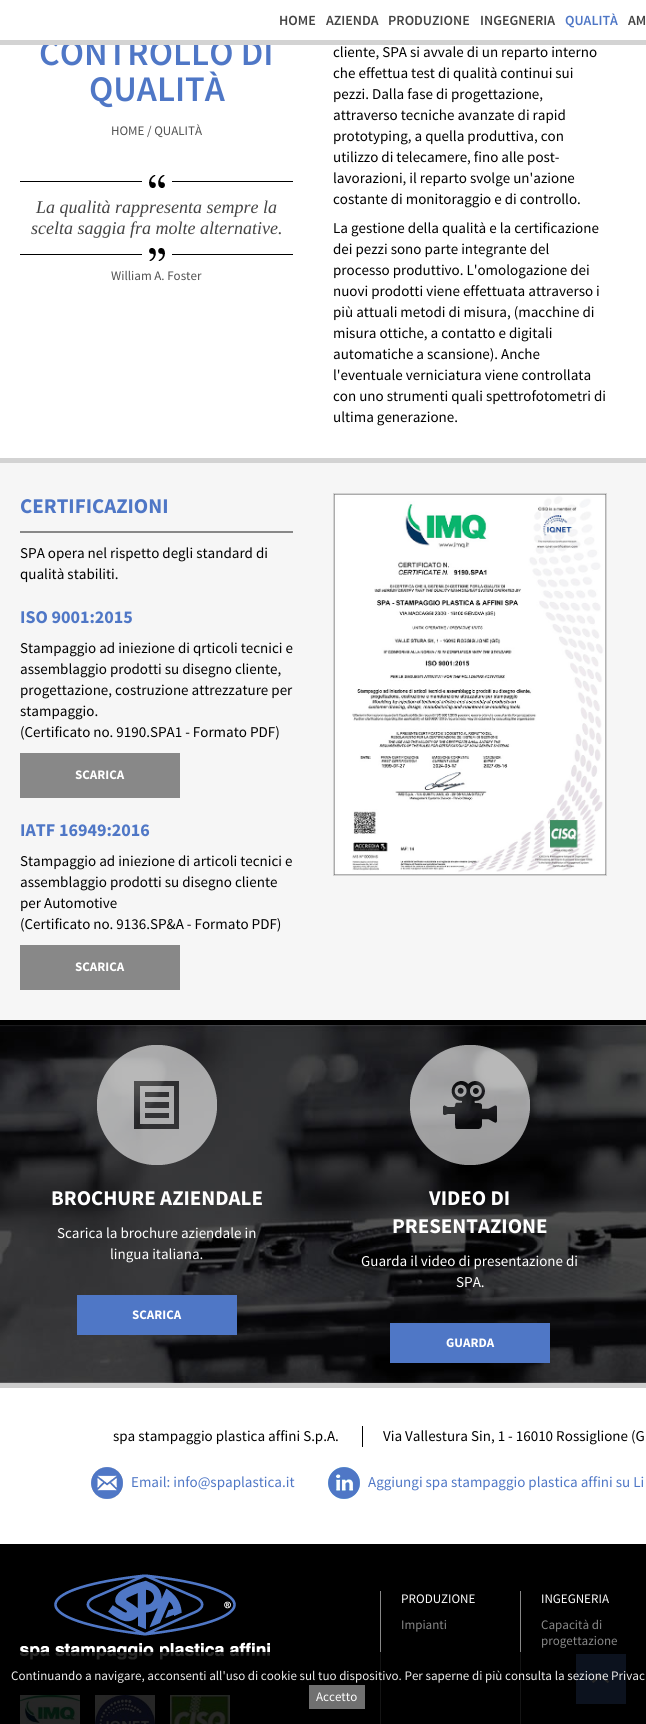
import math
import cairo

surface = cairo.ImageSurface(cairo.FORMAT_RGB24, 646, 1724)
c = cairo.Context(surface)
options = cairo.FontOptions()
options.set_hint_metrics(cairo.HINT_METRICS_OFF)
options.set_hint_style(cairo.HINT_STYLE_NONE)
c.set_font_options(options)
c.set_miter_limit(4)
def C(code):
 c.set_source_rgb(*(v / 255 for v in bytes.fromhex(code[-6:])))
def F(family, size, italic, bold):
 c.select_font_face(family, cairo.FONT_SLANT_ITALIC if italic else cairo.FONT_SLANT_NORMAL, cairo.FONT_WEIGHT_BOLD if bold else cairo.FONT_WEIGHT_NORMAL)
 c.set_font_size(size)
def T(x, y, s):
 c.move_to(x, y)
 c.show_text(s)
def R(x, y, w, h):
 c.rectangle(x, y, w, h)
 c.fill()
def I(path, x, y, w, h):
 c.save()
 c.set_source_surface(cairo.ImageSurface.create_from_png(path), x, y)
 c.rectangle(x, y, w, h)
 c.fill()
 c.restore()
C('ffffff')
c.paint()
F('Source Sans Pro SemiBold',36,0,0)
C('4f77c6')
T(39,65,'CONTROLLO DI')
C('d3d3d3')
R(0,40,646,5)
F('Source Sans Pro SemiBold',14,0,0)
C('444444')
T(279,25,'HOME')
T(326,25,'AZIENDA')
T(388,25,'PRODUZIONE')
T(480,25,'INGEGNERIA')
C('4f77c6')
T(565,25,'QUALITÀ')
C('444444')
T(628,25,'AM')
F('Source Sans Pro SemiBold',36,0,0)
C('4f77c6')
T(89,101,'QUALITÀ')
F('Source Sans Pro',13,0,0)
C('505050')
T(111,135,'HOME / QUALITÀ')
C('000000')
R(20,181,273,1)
R(20,254,273,1)
C('ffffff')
R(142,181,30,1)
I('1.png',149,175,16,13)
F('Liberation Serif',18,1,0)
C('444444')
T(36,213,'La qualità rappresenta sempre la')
T(31,234,'scelta saggia fra molte alternative.')
C('ffffff')
R(142,254,30,1)
I('2.png',149,248,16,13)
F('Source Sans Pro',13,0,0)
C('505050')
T(111,280,'William A. Foster')
F('Source Sans Pro',15,0,0)
C('000000')
T(333,57,'cliente, SPA si avvale di un reparto interno')
T(333,78,'che effettua test di qualità continui sui')
T(333,99,'pezzi. Dalla fase di progettazione,')
T(333,120,'attraverso tecniche avanzate di rapid')
T(333,141,'prototyping, a quella produttiva, con')
T(333,162,'utilizzo di telecamere, fino alle post-')
T(333,183,'lavorazioni, il reparto svolge un\'azione')
T(333,204,'costante di monitoraggio e di controllo.')
T(333,233,'La gestione della qualità e la certificazione')
T(333,254,'dei pezzi sono parte integrante del')
T(333,275,'processo produttivo. L\'omologazione dei')
T(333,296,'nuovi prodotti viene effettuata attraverso i')
T(333,317,'più attuali metodi di misura, (macchine di')
T(333,338,'misura ottiche, a contatto e digitali')
T(333,359,'automatiche a scansione). Anche')
T(333,380,'l\'eventuale verniciatura viene controllata')
T(333,401,'con uno strumenti quali spettrofotometri di')
T(333,422,'ultima generazione.')
C('f6f6f6')
R(0,463,646,557)
C('d3d3d3')
R(0,458,646,5)
C('888888')
R(20,531,273,2)
F('Source Sans Pro',21,0,1)
C('4f77c6')
T(20,513,'CERTIFICAZIONI')
F('Source Sans Pro',15,0,0)
C('000000')
T(20,558,'SPA opera nel rispetto degli standard di')
T(20,579,'qualità stabiliti.')
F('Source Sans Pro',18,0,1)
C('4f77c6')
T(20,623,'ISO 9001:2015')
F('Source Sans Pro',15,0,0)
C('000000')
T(20,653,'Stampaggio ad iniezione di qrticoli tecnici e')
T(20,674,'assemblaggio prodotti su disegno cliente,')
T(20,695,'progettazione, costruzione attrezzature per')
T(20,716,'stampaggio.')
T(20,737,'(Certificato no. 9190.SPA1 - Formato PDF)')
C('888888')
R(20,753,160,45)
F('Source Sans Pro',13,0,1)
C('ffffff')
T(75,779,'SCARICA')
F('Source Sans Pro',18,0,1)
C('4f77c6')
T(20,836,'IATF 16949:2016')
F('Source Sans Pro',15,0,0)
C('000000')
T(20,866,'Stampaggio ad iniezione di articoli tecnici e')
T(20,887,'assemblaggio prodotti su disegno cliente')
T(20,908,'per Automotive')
T(20,929,'(Certificato no. 9136.SP&A - Formato PDF)')
C('888888')
R(20,945,160,45)
F('Source Sans Pro',13,0,1)
C('ffffff')
T(75,971,'SCARICA')
c.rectangle(333.5,493.5,273,382)
C('d3d3d3')
c.set_line_width(1)
c.stroke()
I('3.png',334,494,272,381)
I('4.png',0,1025,646,358)
C('000000')
R(0,1020,646,5)
C('cccccc')
R(0,1383,646,5)
I('5.png',97,1045,120,120)
F('Source Sans Pro',21,0,1)
C('ffffff')
T(51,1205,'BROCHURE AZIENDALE')
F('Source Sans Pro',15,0,0)
T(57,1238,'Scarica la brochure aziendale in')
T(110,1259,'lingua italiana.')
C('4f77c6')
R(77,1295,160,40)
F('Source Sans Pro',13,0,1)
C('ffffff')
T(132,1319,'SCARICA')
I('6.png',410,1045,120,120)
F('Source Sans Pro',21,0,1)
T(429,1205,'VIDEO DI')
T(392,1233,'PRESENTAZIONE')
F('Source Sans Pro',15,0,0)
T(361,1266,'Guarda il video di presentazione di')
T(456,1287,'SPA.')
C('4f77c6')
R(390,1323,160,40)
F('Source Sans Pro',13,0,1)
C('ffffff')
T(446,1347,'GUARDA')
F('Source Sans Pro',15,0,0)
C('000000')
T(113,1441,'spa stampaggio plastica affini S.p.A.')
R(362,1426,1,21)
T(383,1441,'Via Vallestura Sin, 1 - 16010 Rossiglione (G')
I('7.png',91,1467,32,32)
C('4f77c6')
T(131,1487,'Email: info@spaplastica.it')
I('8.png',328,1467,32,32)
T(368,1487,'Aggiungi spa stampaggio plastica affini su Li')
C('000000')
R(0,1544,646,180)
I('9.png',20,1574,250,86)
I('10.png',20,1695,60,29)
I('11.png',95,1695,60,29)
I('12.png',170,1695,60,29)
C('888888')
R(380,1591,1,133)
F('Source Sans Pro',13,0,0)
C('ffffff')
T(401,1603,'PRODUZIONE')
C('888888')
T(401,1629,'Impianti')
R(520,1591,1,133)
C('ffffff')
T(541,1603,'INGEGNERIA')
C('888888')
T(541,1629,'Capacità di')
T(541,1645,'progettazione')
C('4f77c6')
R(576,1654,50,50)
I('13.png',592,1673,17,10)
c.set_source_rgba(0,0,0,0.85)
R(20,1652,606,72)
C('eeeeee')
T(11,1680,'Continuando a navigare, acconsenti all\'uso di cookie sul tuo dispositivo. Per saperne di più consulta la sezione Privac')
C('707070')
R(309,1685,56,24)
C('ffffff')
T(316,1701,'Accetto')
surface.write_to_png('o.png')
